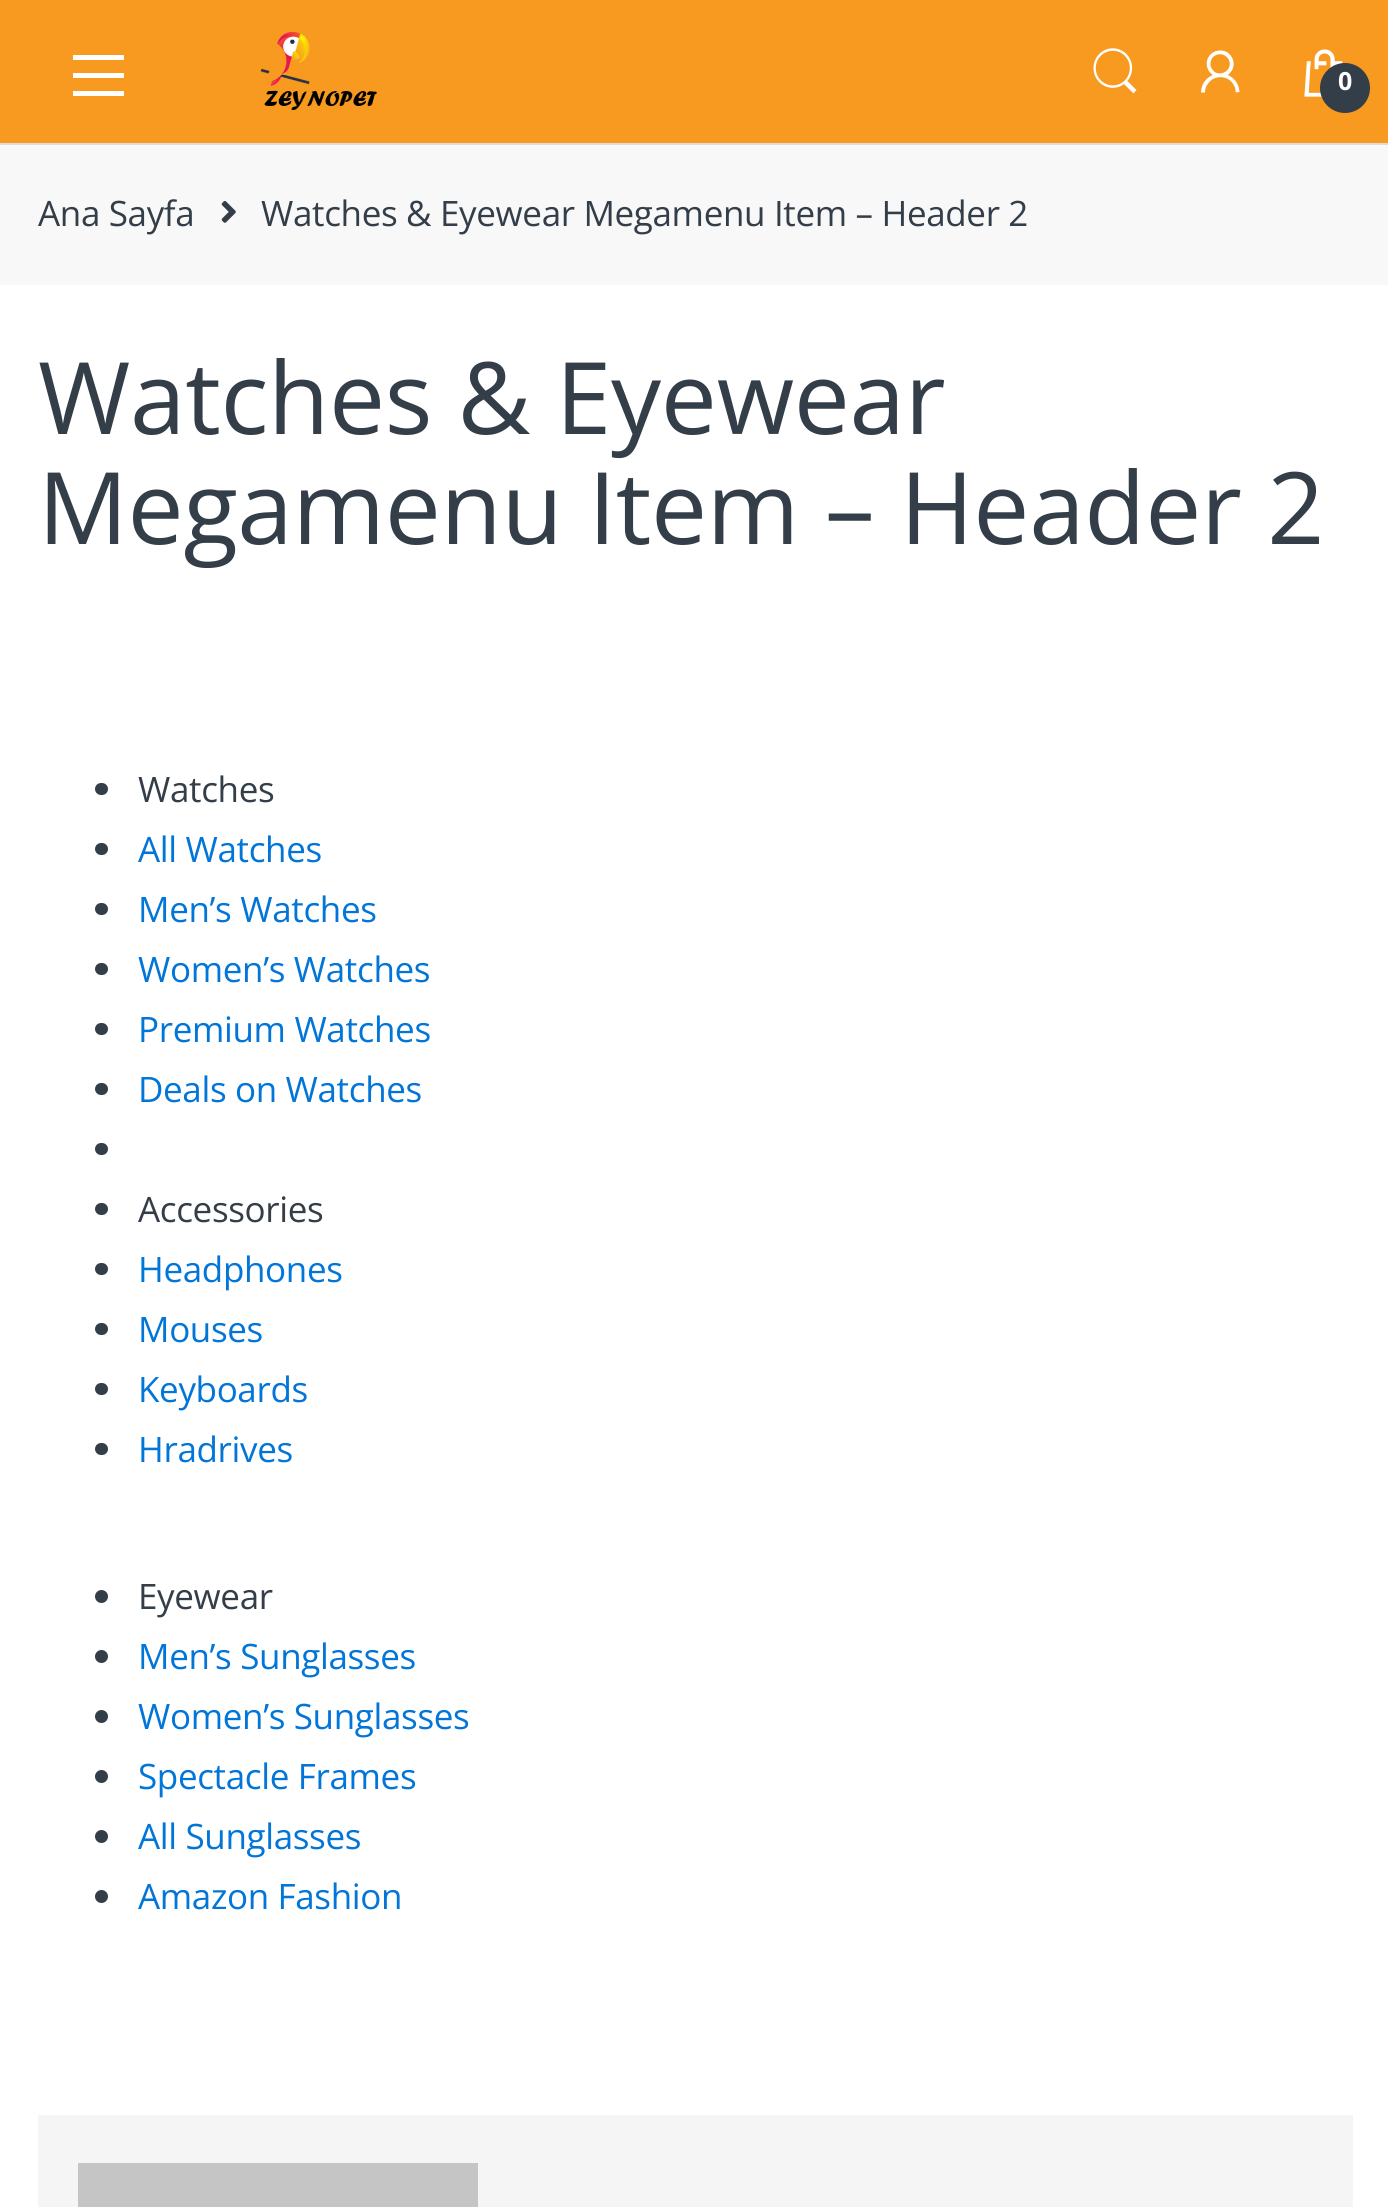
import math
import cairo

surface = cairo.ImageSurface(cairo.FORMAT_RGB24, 1388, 2207)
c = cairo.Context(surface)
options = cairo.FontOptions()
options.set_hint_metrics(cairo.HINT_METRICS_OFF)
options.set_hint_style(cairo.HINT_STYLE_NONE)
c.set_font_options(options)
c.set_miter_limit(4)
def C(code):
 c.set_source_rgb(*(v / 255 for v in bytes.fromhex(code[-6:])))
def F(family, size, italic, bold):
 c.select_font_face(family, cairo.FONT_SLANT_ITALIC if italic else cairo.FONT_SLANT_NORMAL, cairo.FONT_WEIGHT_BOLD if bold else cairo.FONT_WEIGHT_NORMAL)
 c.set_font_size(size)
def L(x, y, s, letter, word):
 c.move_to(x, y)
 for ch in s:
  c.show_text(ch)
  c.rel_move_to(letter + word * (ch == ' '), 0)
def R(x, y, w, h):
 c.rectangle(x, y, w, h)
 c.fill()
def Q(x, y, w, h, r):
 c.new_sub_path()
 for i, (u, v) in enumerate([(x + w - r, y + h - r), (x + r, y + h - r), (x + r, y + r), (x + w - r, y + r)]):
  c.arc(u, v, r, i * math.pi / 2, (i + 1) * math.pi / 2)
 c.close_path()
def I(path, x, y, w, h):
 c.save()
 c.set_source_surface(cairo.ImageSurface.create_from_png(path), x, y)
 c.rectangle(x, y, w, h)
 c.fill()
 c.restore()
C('ffffff')
c.paint()
C('dddddd')
R(0,143,1388,2)
C('f89a20')
R(0,0,1388,143)
C('ffffff')
c.new_path()
c.move_to(73,96)
c.line_to(73,91)
c.line_to(124,91)
c.line_to(124,96)
c.close_path()
c.move_to(73,73)
c.line_to(124,73)
c.line_to(124,78)
c.line_to(73,78)
c.close_path()
c.move_to(73,55)
c.line_to(124,55)
c.line_to(124,60)
c.line_to(73,60)
c.close_path()
c.fill()
I('1.png',260,31,118,79)
I('2.png',1093,48,44,46)
I('3.png',1201,50,39,43)
I('4.png',1304,49,39,48)
C('333e48')
c.arc(1345,88,25,0,2 * math.pi)
c.fill()
F('Open Sans',25,0,1)
C('ffffff')
L(1338,90,'0',-.35,0)
C('f8f8f8')
R(0,145,1388,140)
F('Open Sans',35,0,0)
C('333e48')
L(38,226,'Ana Sayfa',-.35,0)
I('5.png',221,201,15,22)
L(261,226,'Watches & Eyewear Megamenu Item – Header 2',-.35,0)
F('Open Sans',100,0,0)
L(38,434,'Watches & Eyewear',-.35,0)
L(38,544,'Megamenu Item – Header 2',-.35,0)
Q(95,783,13,12,6)
c.fill()
F('Open Sans',35,0,0)
L(138,802,'Watches',-.35,0)
Q(95,843,13,12,6)
c.fill()
C('0275d8')
L(138,862,'All Watches',-.35,0)
C('333e48')
Q(95,903,13,12,6)
c.fill()
C('0275d8')
L(138,922,'Men’s Watches',-.35,0)
C('333e48')
Q(95,963,13,12,6)
c.fill()
C('0275d8')
L(138,982,'Women’s Watches',-.35,0)
C('333e48')
Q(95,1023,13,12,6)
c.fill()
C('0275d8')
L(138,1042,'Premium Watches',-.35,0)
C('333e48')
Q(95,1083,13,12,6)
c.fill()
C('0275d8')
L(138,1102,'Deals on Watches',-.35,0)
C('333e48')
Q(95,1143,13,12,6)
c.fill()
Q(95,1203,13,12,6)
c.fill()
L(138,1222,'Accessories',-.35,0)
Q(95,1263,13,12,6)
c.fill()
C('0275d8')
L(138,1282,'Headphones',-.35,0)
C('333e48')
Q(95,1323,13,12,6)
c.fill()
C('0275d8')
L(138,1342,'Mouses',-.35,0)
C('333e48')
Q(95,1383,13,12,6)
c.fill()
C('0275d8')
L(138,1402,'Keyboards',-.35,0)
C('333e48')
Q(95,1443,13,12,6)
c.fill()
C('0275d8')
L(138,1462,'Hradrives',-.35,0)
C('333e48')
c.new_path()
c.arc(101.5,1596.5,6.5,0,2 * math.pi)
c.fill()
L(138,1609,'Eyewear',-.35,0)
c.new_path()
c.arc(101.5,1656.5,6.5,0,2 * math.pi)
c.fill()
C('0275d8')
L(138,1669,'Men’s Sunglasses',-.35,0)
C('333e48')
c.new_path()
c.arc(101.5,1716.5,6.5,0,2 * math.pi)
c.fill()
C('0275d8')
L(138,1729,'Women’s Sunglasses',-.35,0)
C('333e48')
c.new_path()
c.arc(101.5,1776.5,6.5,0,2 * math.pi)
c.fill()
C('0275d8')
L(138,1789,'Spectacle Frames',-.35,0)
C('333e48')
c.new_path()
c.arc(101.5,1836.5,6.5,0,2 * math.pi)
c.fill()
C('0275d8')
L(138,1849,'All Sunglasses',-.35,0)
C('333e48')
c.new_path()
c.arc(101.5,1896.5,6.5,0,2 * math.pi)
c.fill()
C('0275d8')
L(138,1909,'Amazon Fashion',-.35,0)
C('f5f5f5')
R(38,2115,1315,92)
C('c5c5c5')
R(78,2163,400,44)
surface.write_to_png('o.png')
